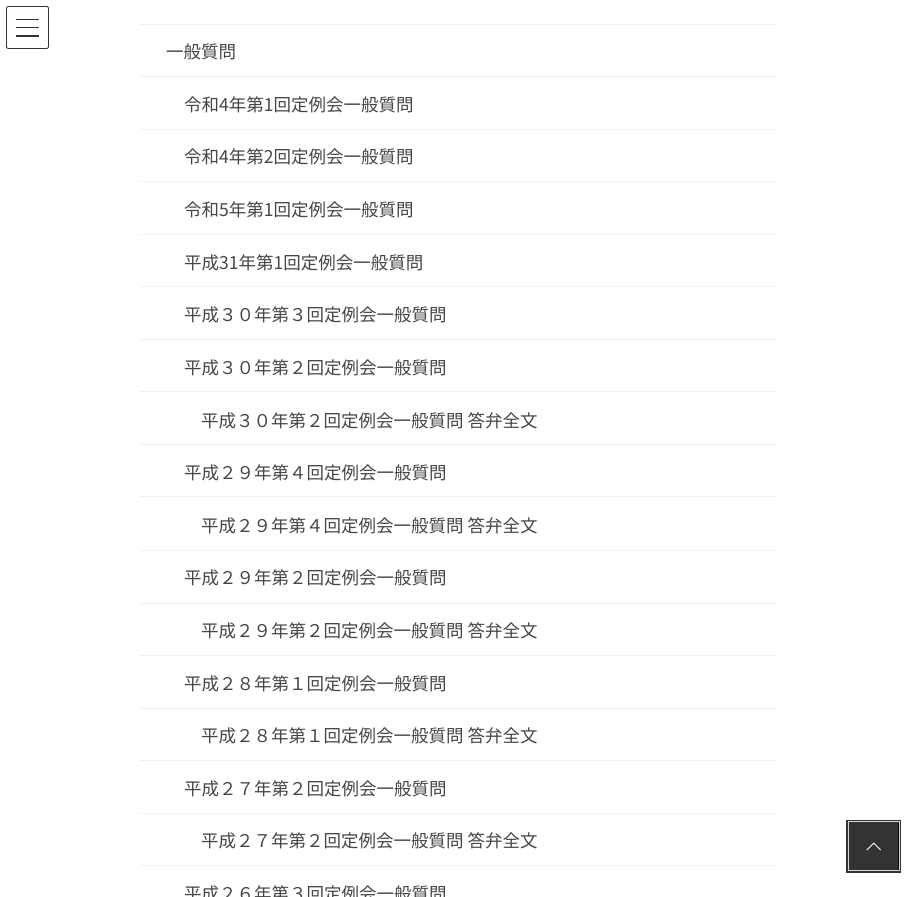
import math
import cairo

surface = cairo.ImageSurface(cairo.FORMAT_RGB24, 917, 897)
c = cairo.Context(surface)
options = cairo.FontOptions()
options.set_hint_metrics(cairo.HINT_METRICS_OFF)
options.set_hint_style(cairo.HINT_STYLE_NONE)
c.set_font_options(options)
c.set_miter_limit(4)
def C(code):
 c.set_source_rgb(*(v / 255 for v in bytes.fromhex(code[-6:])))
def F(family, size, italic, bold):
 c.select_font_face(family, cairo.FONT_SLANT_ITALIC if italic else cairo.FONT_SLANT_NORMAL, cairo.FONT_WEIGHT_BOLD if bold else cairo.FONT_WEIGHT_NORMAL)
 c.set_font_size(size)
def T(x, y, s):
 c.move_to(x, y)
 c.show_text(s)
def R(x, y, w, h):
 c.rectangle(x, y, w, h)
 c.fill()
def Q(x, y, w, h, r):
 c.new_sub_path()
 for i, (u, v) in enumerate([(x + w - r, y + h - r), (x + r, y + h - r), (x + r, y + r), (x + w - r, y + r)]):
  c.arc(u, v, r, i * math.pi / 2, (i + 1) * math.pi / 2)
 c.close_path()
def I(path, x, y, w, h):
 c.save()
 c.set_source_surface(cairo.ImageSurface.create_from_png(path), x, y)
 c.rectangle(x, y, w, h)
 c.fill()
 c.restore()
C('ffffff')
c.paint()
C('333333')
R(16,19,23,1)
R(16,27,23,1)
R(16,35,23,2)
Q(6.5,6.5,42,42,2)
c.set_line_width(1)
c.stroke()
C('f2f2f2')
R(140,24,638,1)
R(140,76,638,1)
F('Noto Sans JP',17.5,0,0)
C('464646')
T(166,58,'一般質問')
C('f2f2f2')
R(140,129,638,1)
C('464646')
T(184,111,'令和4年第1回定例会一般質問')
C('f2f2f2')
R(140,181,638,1)
C('464646')
T(184,163,'令和4年第2回定例会一般質問')
C('f2f2f2')
R(140,234,638,1)
C('464646')
T(184,216,'令和5年第1回定例会一般質問')
C('f2f2f2')
R(140,286,638,1)
C('464646')
T(184,269,'平成31年第1回定例会一般質問')
C('f2f2f2')
R(140,339,638,1)
C('464646')
T(184,321,'平成３０年第３回定例会一般質問')
C('f2f2f2')
R(140,391,638,1)
C('464646')
T(184,374,'平成３０年第２回定例会一般質問')
C('f2f2f2')
R(140,444,638,1)
C('464646')
T(201,427,'平成３０年第２回定例会一般質問 答弁全文')
C('f2f2f2')
R(140,496,638,1)
C('464646')
T(184,479,'平成２９年第４回定例会一般質問')
C('f2f2f2')
R(140,550,638,1)
C('464646')
T(201,532,'平成２９年第４回定例会一般質問 答弁全文')
C('f2f2f2')
R(140,603,638,1)
C('464646')
T(184,584,'平成２９年第２回定例会一般質問')
C('f2f2f2')
R(140,655,638,1)
C('464646')
T(201,637,'平成２９年第２回定例会一般質問 答弁全文')
C('f2f2f2')
R(140,708,638,1)
C('464646')
T(184,690,'平成２８年第１回定例会一般質問')
C('f2f2f2')
R(140,760,638,1)
C('464646')
T(201,742,'平成２８年第１回定例会一般質問 答弁全文')
C('f2f2f2')
R(140,813,638,1)
C('464646')
T(184,795,'平成２７年第２回定例会一般質問')
C('f2f2f2')
R(140,865,638,1)
C('464646')
T(201,847,'平成２７年第２回定例会一般質問 答弁全文')
T(184,900,'平成２６年第３回定例会一般質問')
c.rectangle(847.5,821.5,52,50)
C('333333')
c.set_line_width(3)
c.stroke()
c.rectangle(848.5,821.5,51,49)
C('d6d6d6')
c.set_line_width(1)
c.stroke()
c.set_source_rgba(0,0,0,0.8)
R(849,823,50,47)
I('1.png',866,842,15,9)
surface.write_to_png('o.png')
